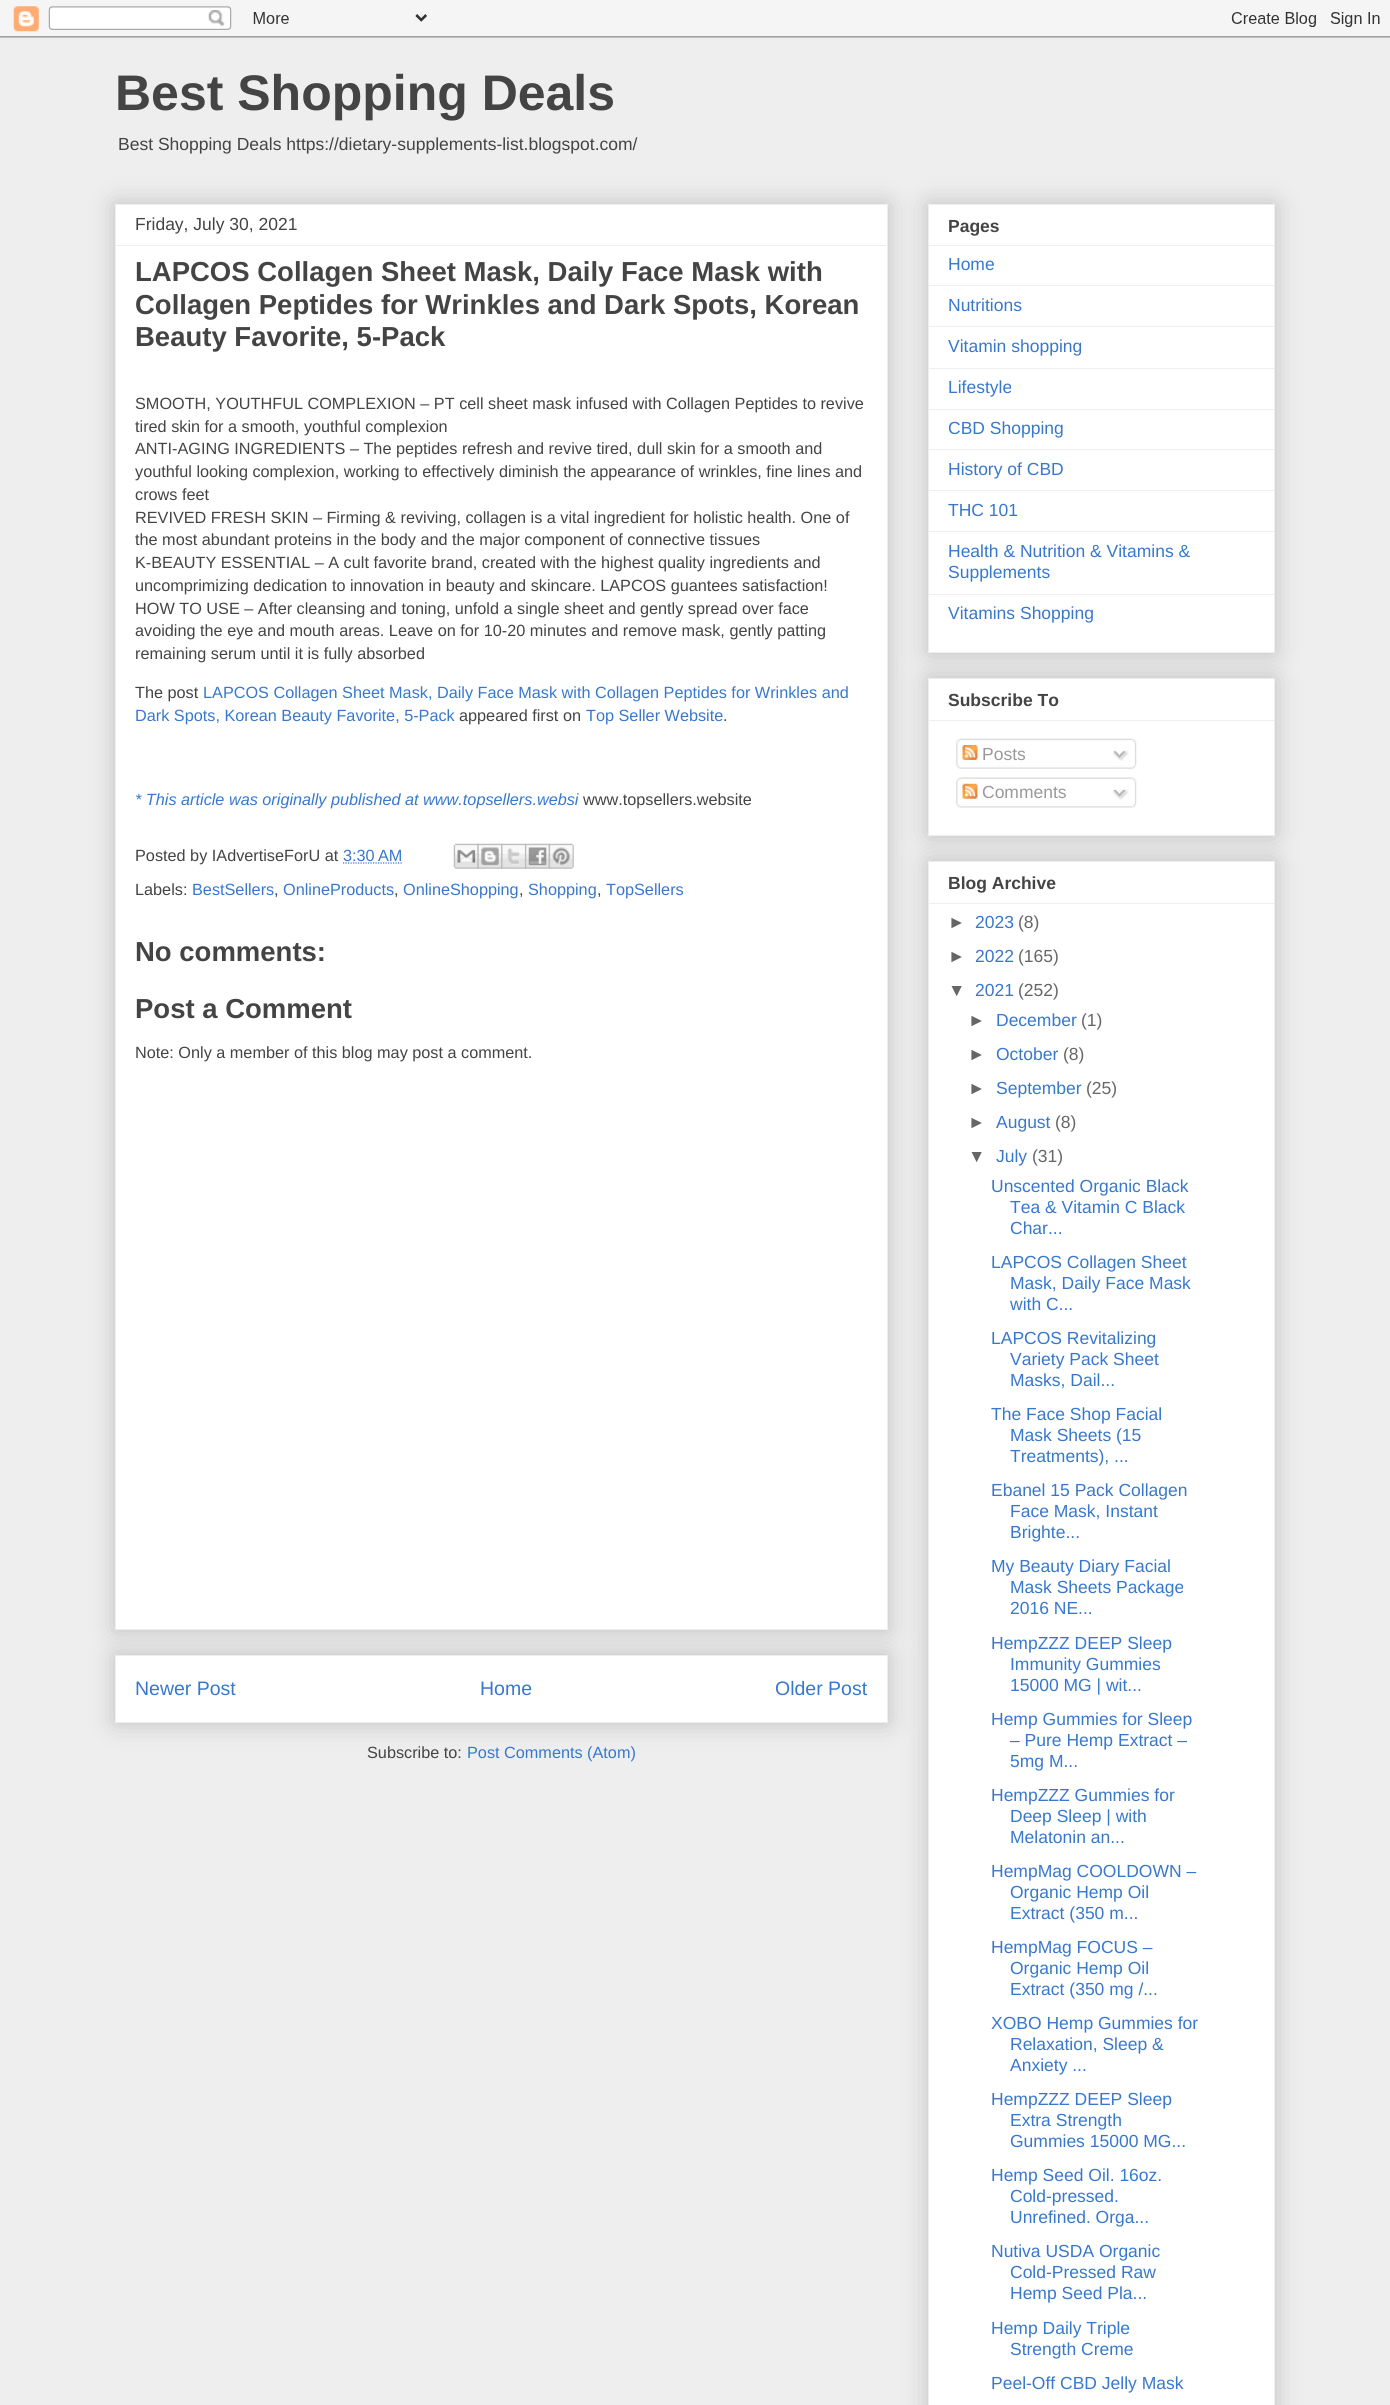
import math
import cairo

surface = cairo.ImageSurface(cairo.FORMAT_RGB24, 1390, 2405)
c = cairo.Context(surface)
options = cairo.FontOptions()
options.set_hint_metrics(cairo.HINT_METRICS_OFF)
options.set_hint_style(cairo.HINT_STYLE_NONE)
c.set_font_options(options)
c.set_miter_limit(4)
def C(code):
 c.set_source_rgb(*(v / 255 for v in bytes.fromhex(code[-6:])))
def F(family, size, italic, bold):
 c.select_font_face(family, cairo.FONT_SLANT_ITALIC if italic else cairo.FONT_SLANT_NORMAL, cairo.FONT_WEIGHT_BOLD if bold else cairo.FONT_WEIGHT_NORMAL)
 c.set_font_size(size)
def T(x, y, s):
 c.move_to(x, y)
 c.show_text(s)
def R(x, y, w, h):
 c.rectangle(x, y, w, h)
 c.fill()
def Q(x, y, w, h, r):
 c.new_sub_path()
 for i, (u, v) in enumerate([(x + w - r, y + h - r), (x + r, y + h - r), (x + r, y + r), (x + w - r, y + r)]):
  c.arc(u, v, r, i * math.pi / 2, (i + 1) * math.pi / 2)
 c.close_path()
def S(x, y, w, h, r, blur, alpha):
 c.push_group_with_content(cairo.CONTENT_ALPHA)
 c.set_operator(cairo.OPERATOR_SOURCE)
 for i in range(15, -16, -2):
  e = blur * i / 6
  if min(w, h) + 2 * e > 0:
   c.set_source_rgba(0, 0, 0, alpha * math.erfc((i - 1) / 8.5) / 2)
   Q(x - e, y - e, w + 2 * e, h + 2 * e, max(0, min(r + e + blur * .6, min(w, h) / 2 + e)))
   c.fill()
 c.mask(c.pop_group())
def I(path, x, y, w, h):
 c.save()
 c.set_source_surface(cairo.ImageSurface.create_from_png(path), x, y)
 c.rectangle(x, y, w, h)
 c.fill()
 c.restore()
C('eeeeee')
c.paint()
I('1.png',0,0,1390,38)
F('Liberation Sans',50,0,1)
C('444444')
T(115,110,'Best Shopping Deals')
F('Liberation Sans',17.5,0,0)
T(118,150,'Best Shopping Deals https://dietary-supplements-list.blogspot.com/')
C('000000')
S(115,1655,773,68,0,12.5,.2)
C('ffffff')
c.rectangle(115.5,1655.5,772,67)
c.fill_preserve()
C('eeeeee')
c.set_line_width(1)
c.stroke()
C('000000')
S(115,204,773,1426,0,12.5,.2)
C('ffffff')
c.rectangle(115.5,204.5,772,1425)
c.fill_preserve()
C('eeeeee')
c.stroke()
C('444444')
T(135,230,'Friday, July 30, 2021')
C('eeeeee')
R(116,245,770,1)
F('Liberation Sans',27.5,0,1)
C('444444')
T(135,281,'LAPCOS Collagen Sheet Mask, Daily Face Mask with')
T(135,314,'Collagen Peptides for Wrinkles and Dark Spots, Korean')
T(135,346,'Beauty Favorite, 5-Pack')
F('Liberation Sans',16.25,0,0)
T(135,409,'SMOOTH, YOUTHFUL COMPLEXION – PT cell sheet mask infused with Collagen Peptides to revive')
T(135,432,'tired skin for a smooth, youthful complexion')
T(135,454,'ANTI-AGING INGREDIENTS – The peptides refresh and revive tired, dull skin for a smooth and')
T(135,477,'youthful looking complexion, working to effectively diminish the appearance of wrinkles, fine lines and')
T(135,500,'crows feet')
T(135,523,'REVIVED FRESH SKIN – Firming & reviving, collagen is a vital ingredient for holistic health. One of')
T(135,545,'the most abundant proteins in the body and the major component of connective tissues')
T(135,568,'K-BEAUTY ESSENTIAL – A cult favorite brand, created with the highest quality ingredients and')
T(135,591,'uncomprimizing dedication to innovation in beauty and skincare. LAPCOS guantees satisfaction!')
T(135,614,'HOW TO USE – After cleansing and toning, unfold a single sheet and gently spread over face')
T(135,636,'avoiding the eye and mouth areas. Leave on for 10-20 minutes and remove mask, gently patting')
T(135,659,'remaining serum until it is fully absorbed')
T(135,698,'The post')
C('3778cd')
T(203,698,'LAPCOS Collagen Sheet Mask, Daily Face Mask with Collagen Peptides for Wrinkles and')
T(135,721,'Dark Spots, Korean Beauty Favorite, 5-Pack')
C('444444')
T(459,721,'appeared first on')
C('3778cd')
T(586,721,'Top Seller Website')
C('444444')
T(723,721,'.')
F('Liberation Sans',16.25,1,0)
C('3778cd')
T(135,805,'* This article was originally published at www.topsellers.websi')
F('Liberation Sans',16.25,0,0)
C('444444')
T(583,805,'www.topsellers.website')
T(135,861,'Posted by IAdvertiseForU at')
C('3778cd')
T(343,861,'3:30 AM')
c.new_path()
c.move_to(343,863)
c.line_to(402,863)
c.set_line_width(1.2)
c.set_dash([1.25,1.25])
c.stroke()
I('2.png',453,843,26,26)
I('3.png',477,843,26,26)
I('4.png',501,843,26,26)
I('5.png',525,843,25,26)
I('6.png',548,843,26,26)
C('444444')
T(135,895,'Labels:')
C('3778cd')
T(192,895,'BestSellers')
C('444444')
T(274,895,',')
C('3778cd')
T(283,895,'OnlineProducts')
C('444444')
T(394,895,',')
C('3778cd')
T(403,895,'OnlineShopping')
C('444444')
T(519,895,',')
C('3778cd')
T(528,895,'Shopping')
C('444444')
T(597,895,',')
C('3778cd')
T(606,895,'TopSellers')
F('Liberation Sans',27.5,0,1)
C('444444')
T(135,961,'No comments:')
T(135,1018,'Post a Comment')
F('Liberation Sans',16.25,0,0)
T(135,1058,'Note: Only a member of this blog may post a comment.')
F('Liberation Sans',19.5,0,0)
C('3778cd')
T(135,1695,'Newer Post')
T(480,1695,'Home')
T(775,1695,'Older Post')
F('Liberation Sans',16.25,0,0)
C('444444')
T(367,1758,'Subscribe to:')
C('3778cd')
T(467,1758,'Post Comments (Atom)')
C('000000')
S(928,678,347,158,0,12.5,.2)
C('ffffff')
c.rectangle(928.5,678.5,346,157)
c.fill_preserve()
C('eeeeee')
c.set_line_width(1)
c.set_dash([])
c.stroke()
C('000000')
S(928,204,347,449,0,12.5,.2)
C('ffffff')
c.rectangle(928.5,204.5,346,448)
c.fill_preserve()
C('eeeeee')
c.stroke()
F('Liberation Sans',17.5,0,1)
C('444444')
T(948,232,'Pages')
C('eeeeee')
R(929,245,345,1)
F('Liberation Sans',17.5,0,0)
C('3778cd')
T(948,270,'Home')
C('eeeeee')
R(929,285,345,1)
C('3778cd')
T(948,311,'Nutritions')
C('eeeeee')
R(929,326,345,1)
C('3778cd')
T(948,352,'Vitamin shopping')
C('eeeeee')
R(929,368,345,1)
C('3778cd')
T(948,393,'Lifestyle')
C('eeeeee')
R(929,409,345,1)
C('3778cd')
T(948,434,'CBD Shopping')
C('eeeeee')
R(929,449,345,1)
C('3778cd')
T(948,475,'History of CBD')
C('eeeeee')
R(929,490,345,1)
C('3778cd')
T(948,516,'THC 101')
C('eeeeee')
R(929,531,345,1)
C('3778cd')
T(948,557,'Health & Nutrition & Vitamins &')
T(948,578,'Supplements')
C('eeeeee')
R(929,594,345,1)
C('3778cd')
T(948,619,'Vitamins Shopping')
F('Liberation Sans',17.5,0,1)
C('444444')
T(948,706,'Subscribe To')
C('eeeeee')
R(929,720,345,1)
I('7.png',956,738,181,27)
I('8.png',962,745,16,15)
F('Liberation Sans',17.5,0,0)
C('999999')
T(982,760,'Posts')
I('9.png',1112,750,17,11)
I('10.png',956,765,180,4)
I('11.png',956,777,181,27)
I('12.png',962,783,16,16)
T(982,798,'Comments')
I('13.png',1112,789,17,11)
I('14.png',956,803,180,5)
C('000000')
S(928,861,347,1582,0,12.5,.2)
C('ffffff')
c.rectangle(928.5,861.5,346,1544)
c.fill_preserve()
C('eeeeee')
c.stroke()
F('Liberation Sans',17.5,0,1)
C('444444')
T(948,889,'Blog Archive')
C('eeeeee')
R(929,903,345,1)
F('Liberation Sans',17.5,0,0)
C('666666')
T(948,928,'►')
C('3778cd')
T(975,928,'2023')
C('666666')
T(1018,928,'(8)')
T(948,962,'►')
C('3778cd')
T(975,962,'2022')
C('666666')
T(1018,962,'(165)')
T(948,996,'▼')
C('3778cd')
T(975,996,'2021')
C('666666')
T(1018,996,'(252)')
T(968,1026,'►')
C('3778cd')
T(996,1026,'December')
C('666666')
T(1081,1026,'(1)')
T(968,1060,'►')
C('3778cd')
T(996,1060,'October')
C('666666')
T(1063,1060,'(8)')
T(968,1094,'►')
C('3778cd')
T(996,1094,'September')
C('666666')
T(1086,1094,'(25)')
T(968,1128,'►')
C('3778cd')
T(996,1128,'August')
C('666666')
T(1055,1128,'(8)')
T(968,1162,'▼')
C('3778cd')
T(996,1162,'July')
C('666666')
T(1032,1162,'(31)')
C('3778cd')
T(991,1192,'Unscented Organic Black')
T(1010,1213,'Tea & Vitamin C Black')
T(1010,1234,'Char...')
T(991,1268,'LAPCOS Collagen Sheet')
T(1010,1289,'Mask, Daily Face Mask')
T(1010,1310,'with C...')
T(991,1344,'LAPCOS Revitalizing')
T(1010,1365,'Variety Pack Sheet')
T(1010,1386,'Masks, Dail...')
T(991,1420,'The Face Shop Facial')
T(1010,1441,'Mask Sheets (15')
T(1010,1462,'Treatments), ...')
T(991,1496,'Ebanel 15 Pack Collagen')
T(1010,1517,'Face Mask, Instant')
T(1010,1538,'Brighte...')
T(991,1572,'My Beauty Diary Facial')
T(1010,1593,'Mask Sheets Package')
T(1010,1614,'2016 NE...')
T(991,1649,'HempZZZ DEEP Sleep')
T(1010,1670,'Immunity Gummies')
T(1010,1691,'15000 MG | wit...')
T(991,1725,'Hemp Gummies for Sleep')
T(1010,1746,'– Pure Hemp Extract –')
T(1010,1767,'5mg M...')
T(991,1801,'HempZZZ Gummies for')
T(1010,1822,'Deep Sleep | with')
T(1010,1843,'Melatonin an...')
T(991,1877,'HempMag COOLDOWN –')
T(1010,1898,'Organic Hemp Oil')
T(1010,1919,'Extract (350 m...')
T(991,1953,'HempMag FOCUS –')
T(1010,1974,'Organic Hemp Oil')
T(1010,1995,'Extract (350 mg /...')
T(991,2029,'XOBO Hemp Gummies for')
T(1010,2050,'Relaxation, Sleep &')
T(1010,2071,'Anxiety ...')
T(991,2105,'HempZZZ DEEP Sleep')
T(1010,2126,'Extra Strength')
T(1010,2147,'Gummies 15000 MG...')
T(991,2181,'Hemp Seed Oil. 16oz.')
T(1010,2202,'Cold-pressed.')
T(1010,2223,'Unrefined. Orga...')
T(991,2257,'Nutiva USDA Organic')
T(1010,2278,'Cold-Pressed Raw')
T(1010,2299,'Hemp Seed Pla...')
T(991,2334,'Hemp Daily Triple')
T(1010,2355,'Strength Creme')
T(991,2389,'Peel-Off CBD Jelly Mask')
surface.write_to_png('o.png')
